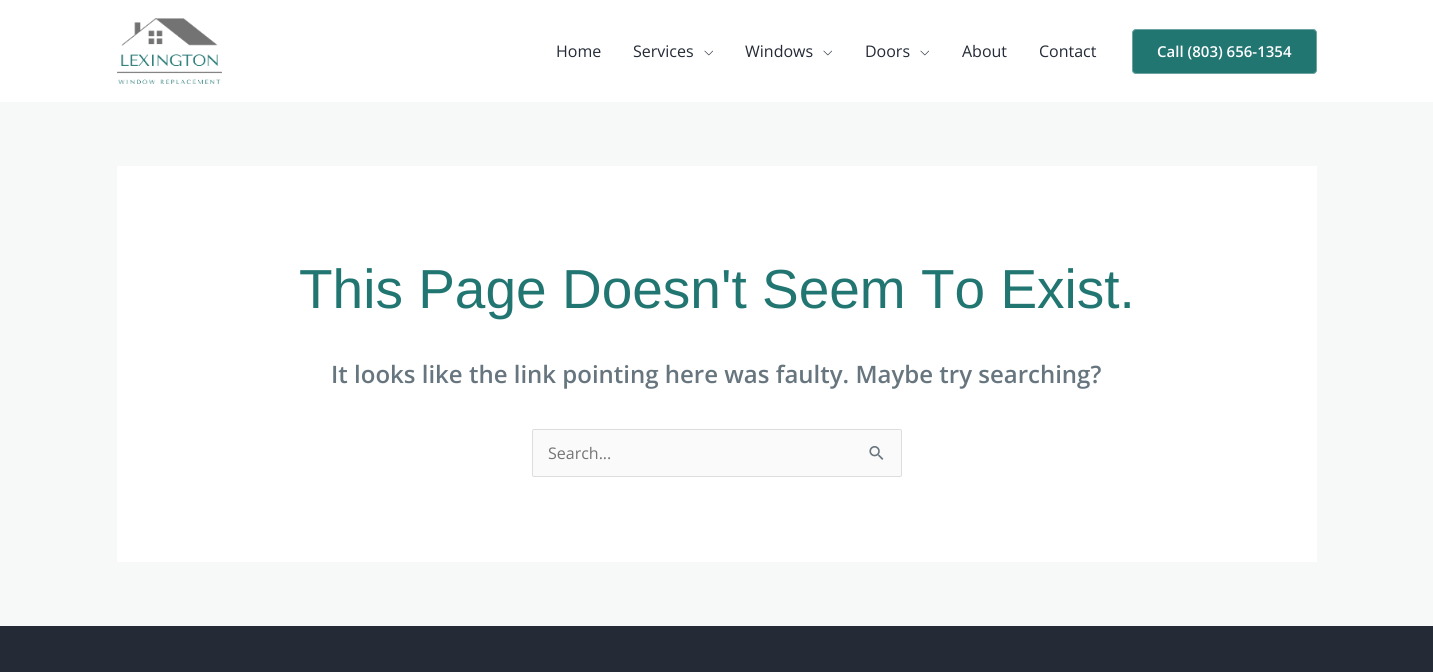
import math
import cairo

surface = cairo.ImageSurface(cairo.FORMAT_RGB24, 1433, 672)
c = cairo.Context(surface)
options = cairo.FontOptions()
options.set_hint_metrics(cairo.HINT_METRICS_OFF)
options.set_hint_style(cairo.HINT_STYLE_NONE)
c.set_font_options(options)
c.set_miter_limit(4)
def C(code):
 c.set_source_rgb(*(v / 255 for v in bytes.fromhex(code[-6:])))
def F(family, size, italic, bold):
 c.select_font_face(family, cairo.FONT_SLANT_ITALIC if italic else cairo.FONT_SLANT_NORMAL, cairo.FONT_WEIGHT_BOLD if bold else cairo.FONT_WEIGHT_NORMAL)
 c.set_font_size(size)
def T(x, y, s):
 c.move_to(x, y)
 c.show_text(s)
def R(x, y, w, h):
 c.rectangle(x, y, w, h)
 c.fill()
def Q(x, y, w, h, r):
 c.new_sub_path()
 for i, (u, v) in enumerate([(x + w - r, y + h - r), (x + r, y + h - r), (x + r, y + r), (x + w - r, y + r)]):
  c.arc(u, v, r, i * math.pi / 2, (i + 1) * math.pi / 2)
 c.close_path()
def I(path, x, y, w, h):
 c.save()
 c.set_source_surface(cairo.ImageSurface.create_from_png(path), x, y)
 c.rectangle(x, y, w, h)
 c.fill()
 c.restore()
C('f7f8f8')
c.paint()
C('ffffff')
R(0,0,1433,102)
I('1.png',117,18,105,66)
F('Open Sans',16,0,0)
C('242a36')
T(556,57,'Home')
T(633,57,'Services')
I('2.png',704,50,9,6)
T(745,57,'Windows')
I('2.png',823,50,9,6)
T(865,57,'Doors')
I('2.png',920,50,9,6)
T(962,57,'About')
T(1039,57,'Contact')
C('217672')
Q(1132,29,185,45,4)
c.fill()
Q(1132.5,29.5,184,44,3.5)
c.set_source_rgba(1,1,1,0.33)
c.set_line_width(1)
c.stroke()
F('Open Sans SemiBold',15,0,0)
C('ffffff')
T(1157,57,'Call (803) 656-1354')
R(117,166,1200,396)
F('Liberation Sans',55,0,0)
C('217672')
T(299,308,'This Page Doesn\'t Seem To Exist.')
F('Open Sans SemiBold',24,0,0)
C('67757f')
T(331,383,'It looks like the link pointing here was faulty. Maybe try searching?')
C('fafafa')
Q(532.5,429.5,369,47,1.5)
c.fill_preserve()
C('dddddd')
c.stroke()
F('Open Sans',16,0,0)
C('757575')
T(548,459,'Search...')
I('3.png',869,446,15,14)
C('242a36')
R(0,626,1433,46)
surface.write_to_png('o.png')
